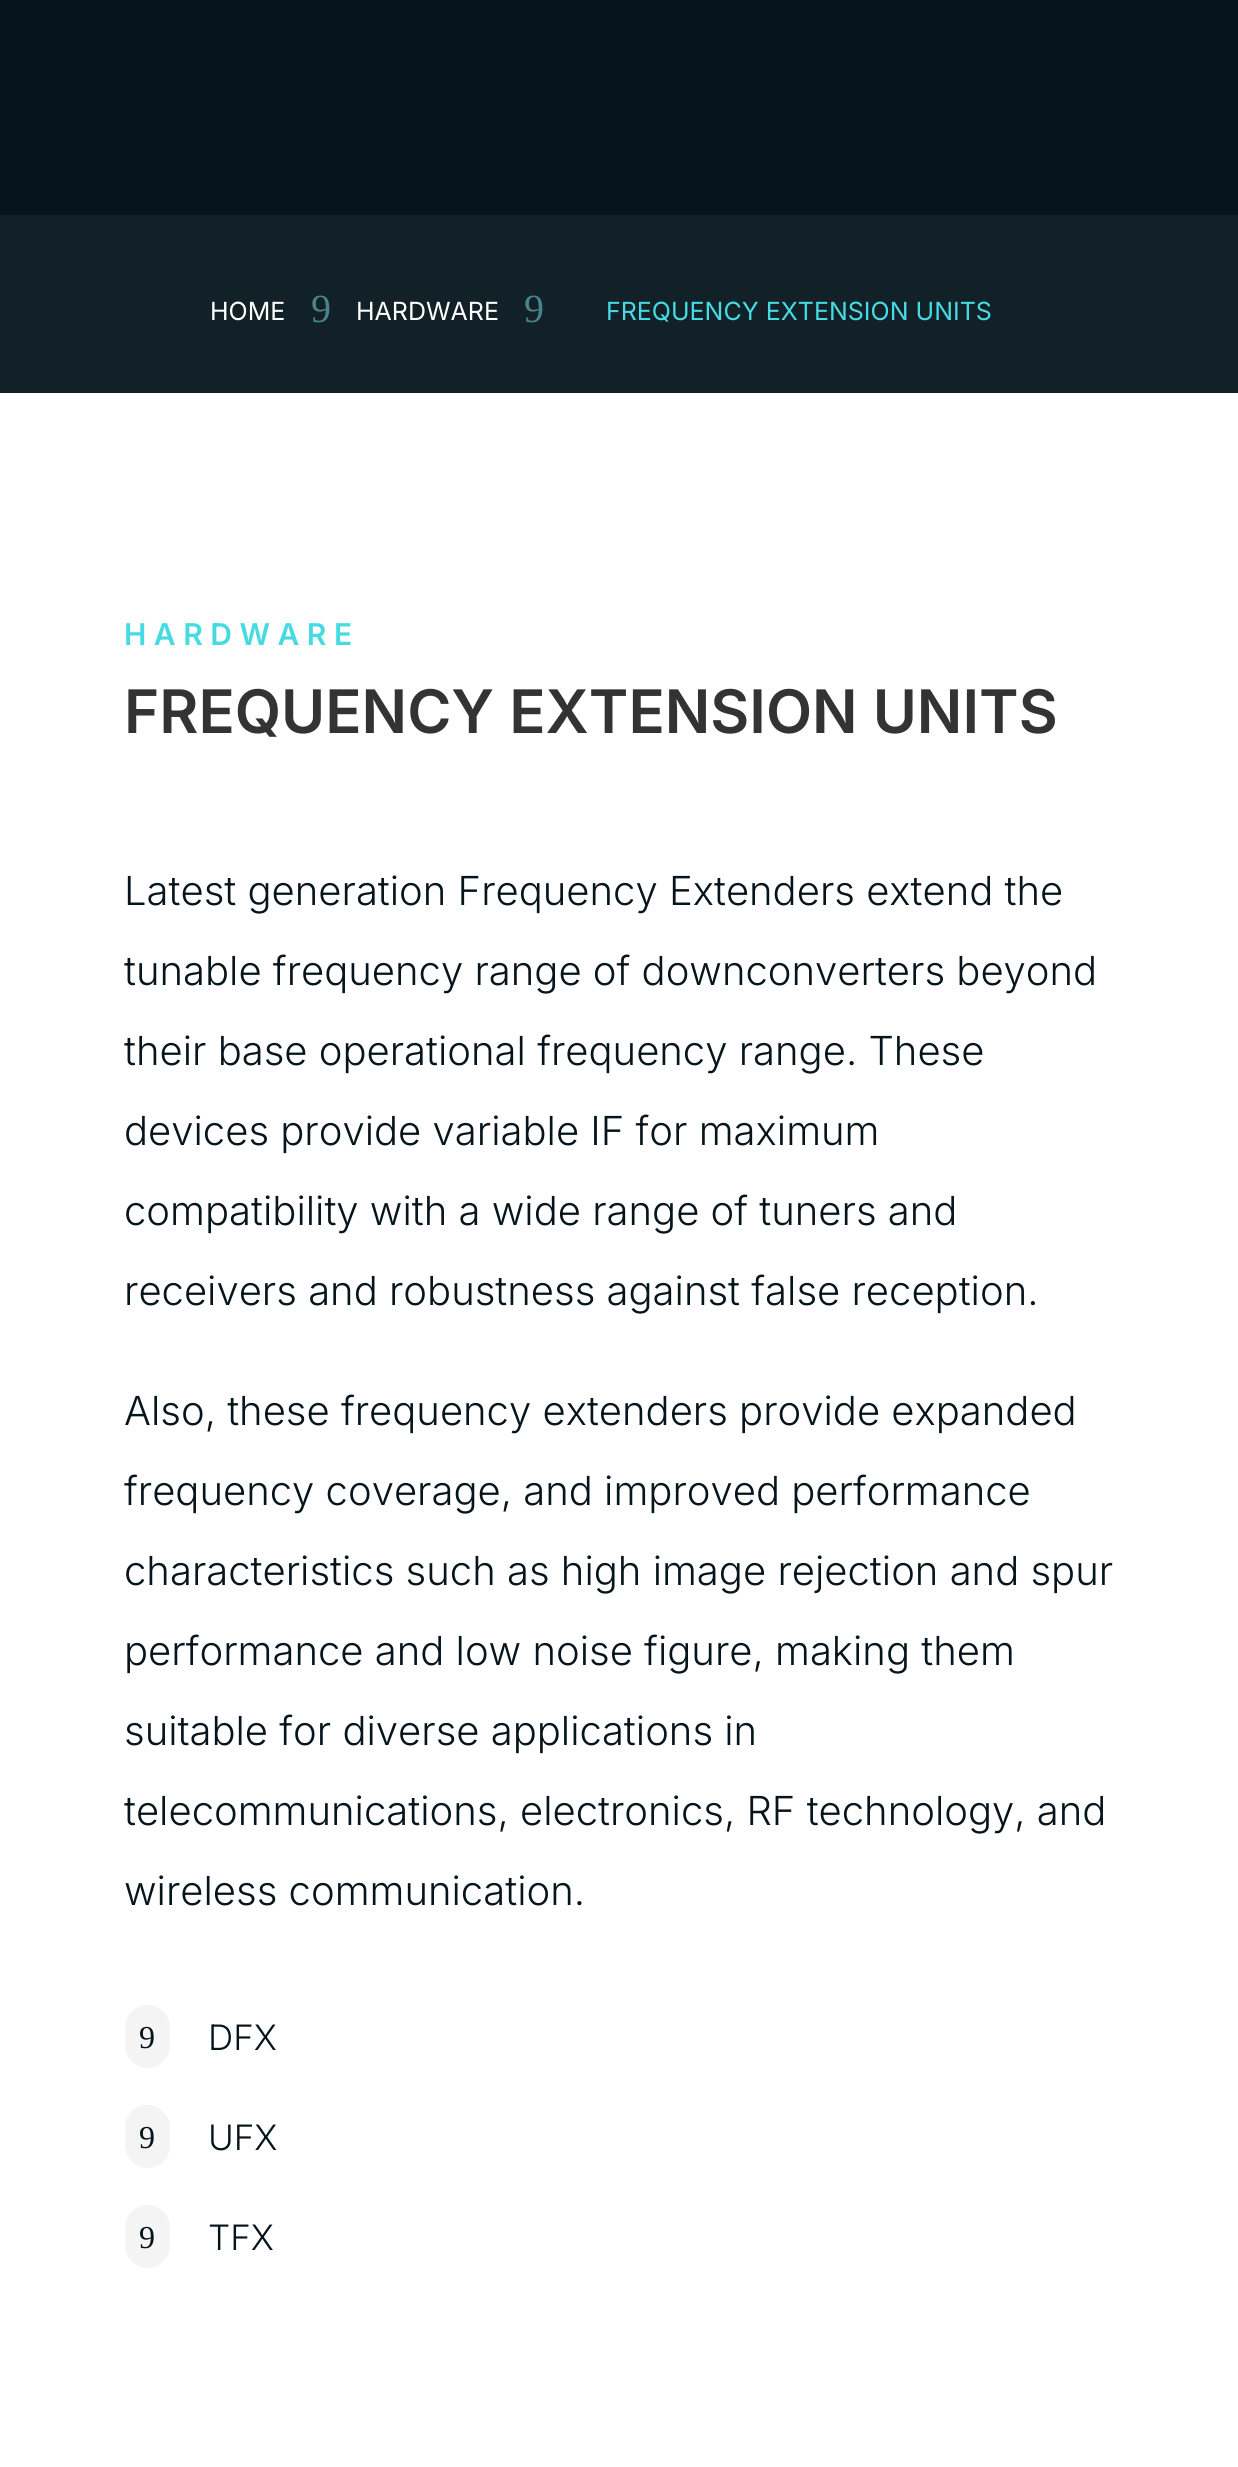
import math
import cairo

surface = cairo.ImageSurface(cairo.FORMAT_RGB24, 1238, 2467)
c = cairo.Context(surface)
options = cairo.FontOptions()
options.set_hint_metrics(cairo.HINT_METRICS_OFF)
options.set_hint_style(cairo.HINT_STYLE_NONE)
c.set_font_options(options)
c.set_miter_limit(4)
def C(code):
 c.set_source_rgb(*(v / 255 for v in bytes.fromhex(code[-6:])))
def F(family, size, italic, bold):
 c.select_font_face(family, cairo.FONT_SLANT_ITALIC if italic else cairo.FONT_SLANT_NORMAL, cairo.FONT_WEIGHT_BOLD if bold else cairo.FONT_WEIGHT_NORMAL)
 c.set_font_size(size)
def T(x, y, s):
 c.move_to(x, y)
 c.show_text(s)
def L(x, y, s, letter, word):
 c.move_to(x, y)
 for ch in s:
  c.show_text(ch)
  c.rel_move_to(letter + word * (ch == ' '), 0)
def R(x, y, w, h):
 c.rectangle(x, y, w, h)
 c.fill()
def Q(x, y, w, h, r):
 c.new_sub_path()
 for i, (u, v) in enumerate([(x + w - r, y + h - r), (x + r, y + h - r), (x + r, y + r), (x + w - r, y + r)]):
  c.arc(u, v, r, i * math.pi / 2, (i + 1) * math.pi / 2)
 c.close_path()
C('ffffff')
c.paint()
C('06141c')
R(0,0,1238,215)
C('122027')
R(0,215,1238,178)
F('Inter',25,0,0)
C('ffffff')
T(210,320,'HOME')
F('Liberation Serif',40,0,0)
C('47848c')
T(311,322,'9')
F('Inter',25,0,0)
C('ffffff')
T(356,320,'HARDWARE')
F('Liberation Serif',40,0,0)
C('47848c')
T(524,322,'9')
F('Inter',25,0,0)
C('46dbe3')
T(606,320,'FREQUENCY EXTENSION UNITS')
F('Inter SemiBold',30,0,0)
L(124,645,'HARDWARE',7.5,0)
F('Inter SemiBold',60,0,0)
C('333333')
T(124,733,'FREQUENCY EXTENSION UNITS')
F('Inter Light',40,0,0)
C('06141c')
T(124,905,'Latest generation Frequency Extenders extend the')
T(124,985,'tunable frequency range of downconverters beyond')
T(124,1065,'their base operational frequency range. These')
T(124,1145,'devices provide variable IF for maximum')
T(124,1225,'compatibility with a wide range of tuners and')
T(124,1305,'receivers and robustness against false reception.')
T(124,1425,'Also, these frequency extenders provide expanded')
T(124,1505,'frequency coverage, and improved performance')
T(124,1585,'characteristics such as high image rejection and spur')
T(124,1665,'performance and low noise figure, making them')
T(124,1745,'suitable for diverse applications in')
T(124,1825,'telecommunications, electronics, RF technology, and')
T(124,1905,'wireless communication.')
C('f4f4f4')
Q(125,2005,45,63,22.5)
c.fill()
F('Liberation Serif',32,0,0)
C('06141c')
T(139,2048,'9')
F('Inter Light',35,0,0)
T(208,2050,'DFX')
C('f4f4f4')
Q(125,2105,45,63,22.5)
c.fill()
F('Liberation Serif',32,0,0)
C('06141c')
T(139,2148,'9')
F('Inter Light',35,0,0)
T(208,2150,'UFX')
C('f4f4f4')
Q(125,2205,45,63,22.5)
c.fill()
F('Liberation Serif',32,0,0)
C('06141c')
T(139,2248,'9')
F('Inter Light',35,0,0)
T(208,2250,'TFX')
surface.write_to_png('o.png')
